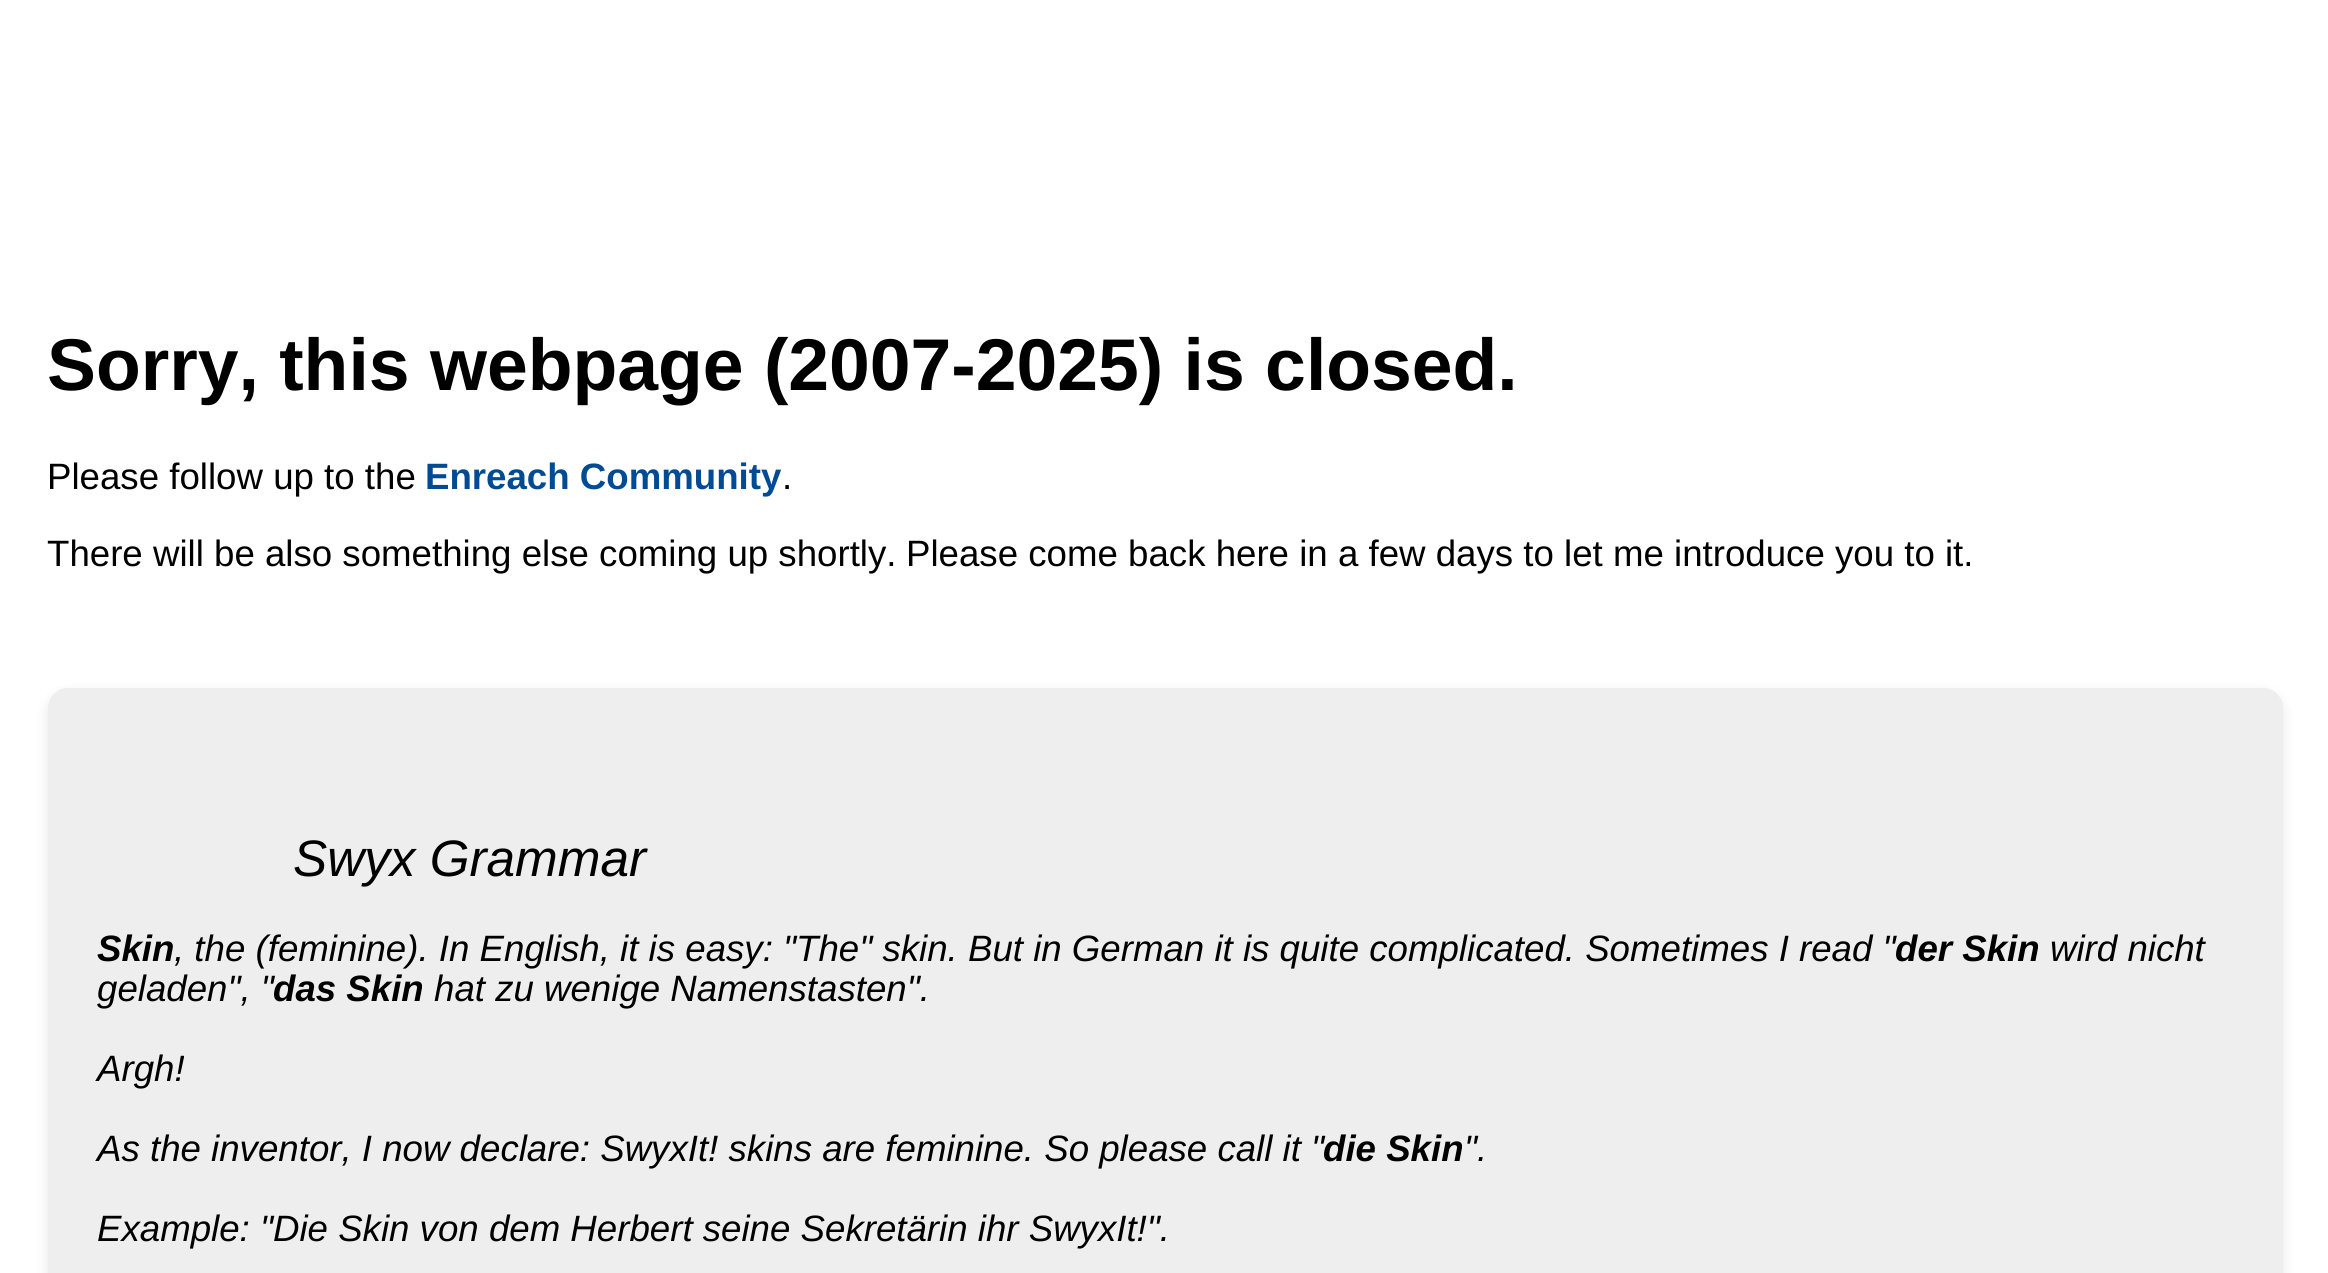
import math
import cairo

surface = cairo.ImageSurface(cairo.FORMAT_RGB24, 2328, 1273)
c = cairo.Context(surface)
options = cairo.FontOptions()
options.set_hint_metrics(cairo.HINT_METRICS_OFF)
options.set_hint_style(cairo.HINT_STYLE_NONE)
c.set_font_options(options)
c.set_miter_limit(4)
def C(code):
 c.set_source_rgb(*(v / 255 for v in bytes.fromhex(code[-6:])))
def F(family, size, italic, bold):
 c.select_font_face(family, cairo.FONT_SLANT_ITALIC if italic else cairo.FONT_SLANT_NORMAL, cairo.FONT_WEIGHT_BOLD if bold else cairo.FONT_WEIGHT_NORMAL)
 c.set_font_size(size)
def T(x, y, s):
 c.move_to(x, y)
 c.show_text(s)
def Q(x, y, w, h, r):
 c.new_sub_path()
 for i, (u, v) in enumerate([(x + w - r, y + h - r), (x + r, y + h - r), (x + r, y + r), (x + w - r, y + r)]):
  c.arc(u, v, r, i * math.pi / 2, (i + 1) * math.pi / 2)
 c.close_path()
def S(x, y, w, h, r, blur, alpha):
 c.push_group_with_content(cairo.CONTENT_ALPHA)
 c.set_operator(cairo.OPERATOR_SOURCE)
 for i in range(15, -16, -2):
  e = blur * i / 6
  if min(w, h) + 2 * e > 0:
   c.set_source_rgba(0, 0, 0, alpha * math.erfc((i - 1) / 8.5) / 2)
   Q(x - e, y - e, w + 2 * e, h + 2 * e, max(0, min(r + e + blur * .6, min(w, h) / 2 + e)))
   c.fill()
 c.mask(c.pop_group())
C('ffffff')
c.paint()
F('Liberation Sans',73.3,0,1)
C('000000')
T(47,390,'Sorry, this webpage (2007-2025) is closed.')
F('Liberation Sans',36.65,0,0)
T(47,489,'Please follow up to the')
F('Liberation Sans',36.65,0,1)
C('014b95')
T(425,489,'Enreach Community')
F('Liberation Sans',36.65,0,0)
C('000000')
T(782,489,'.')
T(47,566,'There will be also something else coming up shortly.')
T(906,566,'Please come back here in a few days to let me introduce you to it.')
C('000000')
S(48,693,2235,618,20,6,.1)
C('eeeeee')
Q(48,688,2235,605,20)
c.fill()
F('Liberation Sans',51.25,1,0)
C('000000')
T(293,876,'Swyx Grammar')
F('Liberation Sans',36.65,1,1)
T(97,961,'Skin')
F('Liberation Sans',36.65,1,0)
T(174,961,', the (feminine). In English, it is easy: "The" skin. But in German it is quite complicated. Sometimes I read "')
F('Liberation Sans',36.65,1,1)
T(1895,961,'der Skin')
F('Liberation Sans',36.65,1,0)
T(2050,961,'wird nicht')
T(97,1001,'geladen", "')
F('Liberation Sans',36.65,1,1)
T(273,1001,'das Skin')
F('Liberation Sans',36.65,1,0)
T(434,1001,'hat zu wenige Namenstasten".')
T(97,1081,'Argh!')
T(97,1161,'As the inventor, I now declare: SwyxIt! skins are feminine. So please call it "')
F('Liberation Sans',36.65,1,1)
T(1323,1161,'die Skin')
F('Liberation Sans',36.65,1,0)
T(1464,1161,'".')
T(97,1241,'Example: "Die Skin von dem Herbert seine Sekretärin ihr SwyxIt!".')
surface.write_to_png('o.png')
